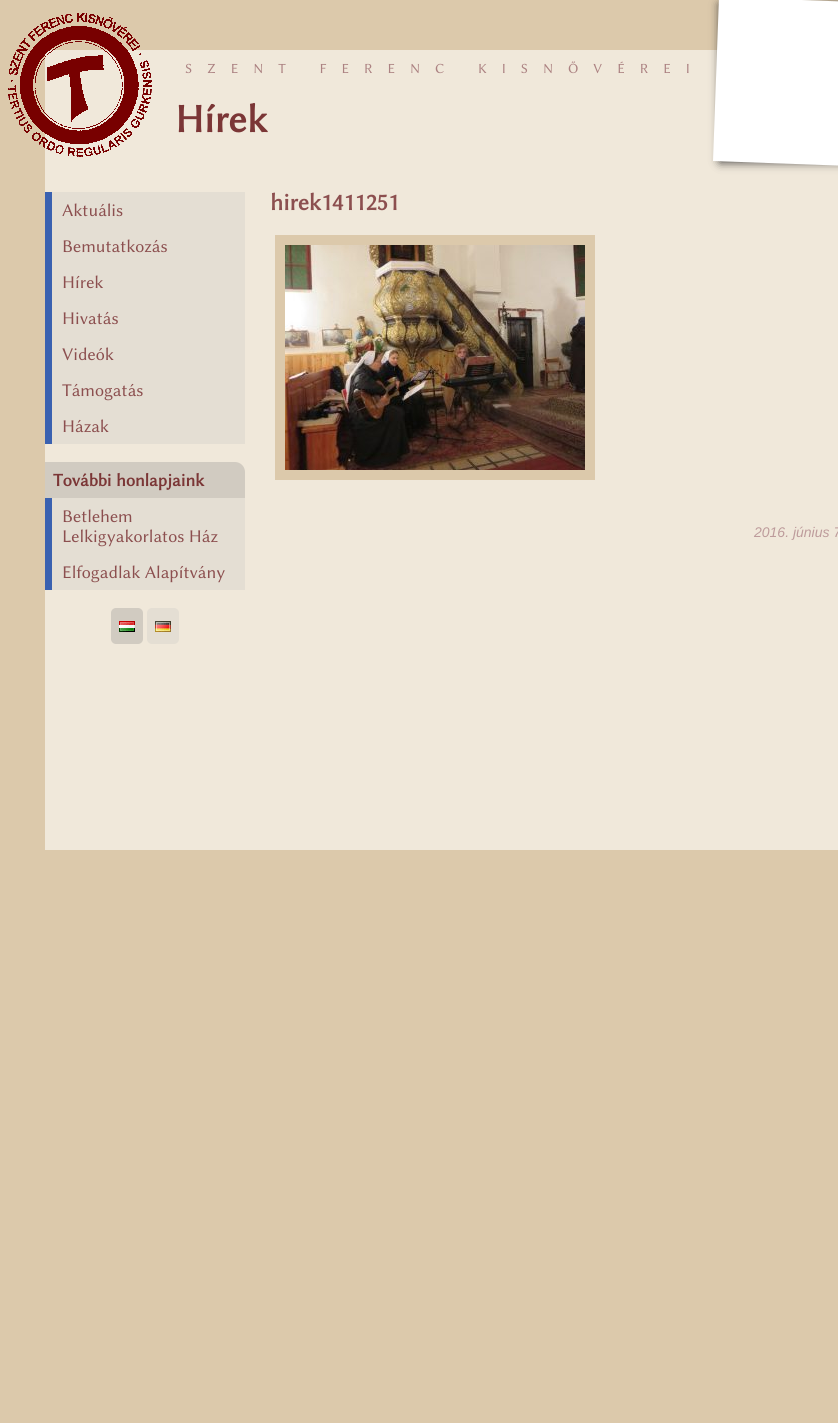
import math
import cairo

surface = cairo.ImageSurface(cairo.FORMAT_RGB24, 838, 1423)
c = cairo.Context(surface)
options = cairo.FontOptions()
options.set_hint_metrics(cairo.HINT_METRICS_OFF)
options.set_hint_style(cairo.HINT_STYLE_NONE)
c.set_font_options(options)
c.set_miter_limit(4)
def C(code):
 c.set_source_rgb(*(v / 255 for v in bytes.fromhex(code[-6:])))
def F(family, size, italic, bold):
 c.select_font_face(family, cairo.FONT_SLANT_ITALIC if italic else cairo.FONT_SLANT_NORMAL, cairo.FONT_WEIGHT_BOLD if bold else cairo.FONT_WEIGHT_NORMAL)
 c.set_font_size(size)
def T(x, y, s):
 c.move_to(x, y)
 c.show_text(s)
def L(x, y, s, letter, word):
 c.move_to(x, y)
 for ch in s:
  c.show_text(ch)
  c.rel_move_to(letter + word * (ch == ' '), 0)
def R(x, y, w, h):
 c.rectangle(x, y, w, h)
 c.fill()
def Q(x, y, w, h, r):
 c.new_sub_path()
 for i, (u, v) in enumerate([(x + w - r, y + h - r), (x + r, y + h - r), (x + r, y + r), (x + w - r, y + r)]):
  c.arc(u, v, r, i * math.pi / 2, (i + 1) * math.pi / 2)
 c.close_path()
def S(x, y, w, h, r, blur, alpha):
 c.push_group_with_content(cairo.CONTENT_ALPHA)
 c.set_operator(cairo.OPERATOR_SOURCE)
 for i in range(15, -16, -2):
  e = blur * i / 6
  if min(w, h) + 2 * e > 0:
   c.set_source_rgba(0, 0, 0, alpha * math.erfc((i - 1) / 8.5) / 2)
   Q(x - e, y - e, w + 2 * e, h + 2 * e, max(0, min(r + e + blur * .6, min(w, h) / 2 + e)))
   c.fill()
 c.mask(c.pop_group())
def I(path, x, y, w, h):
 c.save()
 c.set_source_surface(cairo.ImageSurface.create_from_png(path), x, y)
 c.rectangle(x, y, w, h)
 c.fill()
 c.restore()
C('dcc9ab')
c.paint()
C('f0e8da')
R(45,50,793,800)
I('1.png',8,13,144,144)
F('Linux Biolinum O',14,0,0)
C('ac8282')
L(185,73,'SZENT FERENC KISNŐVÉREI',15,0)
C('333333')
S(720,4,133,158,0,5,1)
C('ffffff')
c.new_path()
c.move_to(719,-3)
c.line_to(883,3)
c.line_to(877,167)
c.line_to(713,161)
c.close_path()
c.fill()
F('Linux Biolinum O',40,0,1)
C('7b3636')
T(175,132,'Hírek')
C('e4ded3')
R(52,192,193,252)
C('3a61b0')
R(45,192,7,252)
F('Linux Biolinum O',18,0,0)
C('8c4f4f')
T(62,216,'Aktuális')
T(62,252,'Bemutatkozás')
T(62,288,'Hírek')
T(62,324,'Hivatás')
T(62,360,'Videók')
T(62,396,'Támogatás')
T(62,432,'Házak')
C('d1cbc1')
c.new_path()
c.move_to(45,462)
c.line_to(235,462)
c.curve_to(240.5,462,245,466.5,245,472)
c.line_to(245,498)
c.line_to(45,498)
c.close_path()
c.fill()
F('Linux Biolinum O',18,0,1)
C('7b3636')
T(53,486,'További honlapjaink')
C('e4ded3')
R(52,498,193,92)
C('3a61b0')
R(45,498,7,92)
F('Linux Biolinum O',18,0,0)
C('8c4f4f')
T(62,522,'Betlehem')
T(62,542,'Lelkigyakorlatos Ház')
T(62,578,'Elfogadlak Alapítvány')
C('d1cbc1')
Q(111,608,32,36,5)
c.fill()
I('2.png',119,621,16,11)
C('e4ded3')
Q(147,608,32,36,5)
c.fill()
I('3.png',155,621,16,11)
F('Linux Biolinum O',24,0,1)
C('8c4f4f')
T(270,210,'hirek1411251')
C('dcc9ab')
R(275,235,320,245)
I('4.png',285,245,300,225)
F('Liberation Sans',14,1,0)
C('bd9b9b')
T(754,537,'2016. június 7')
surface.write_to_png('o.png')
